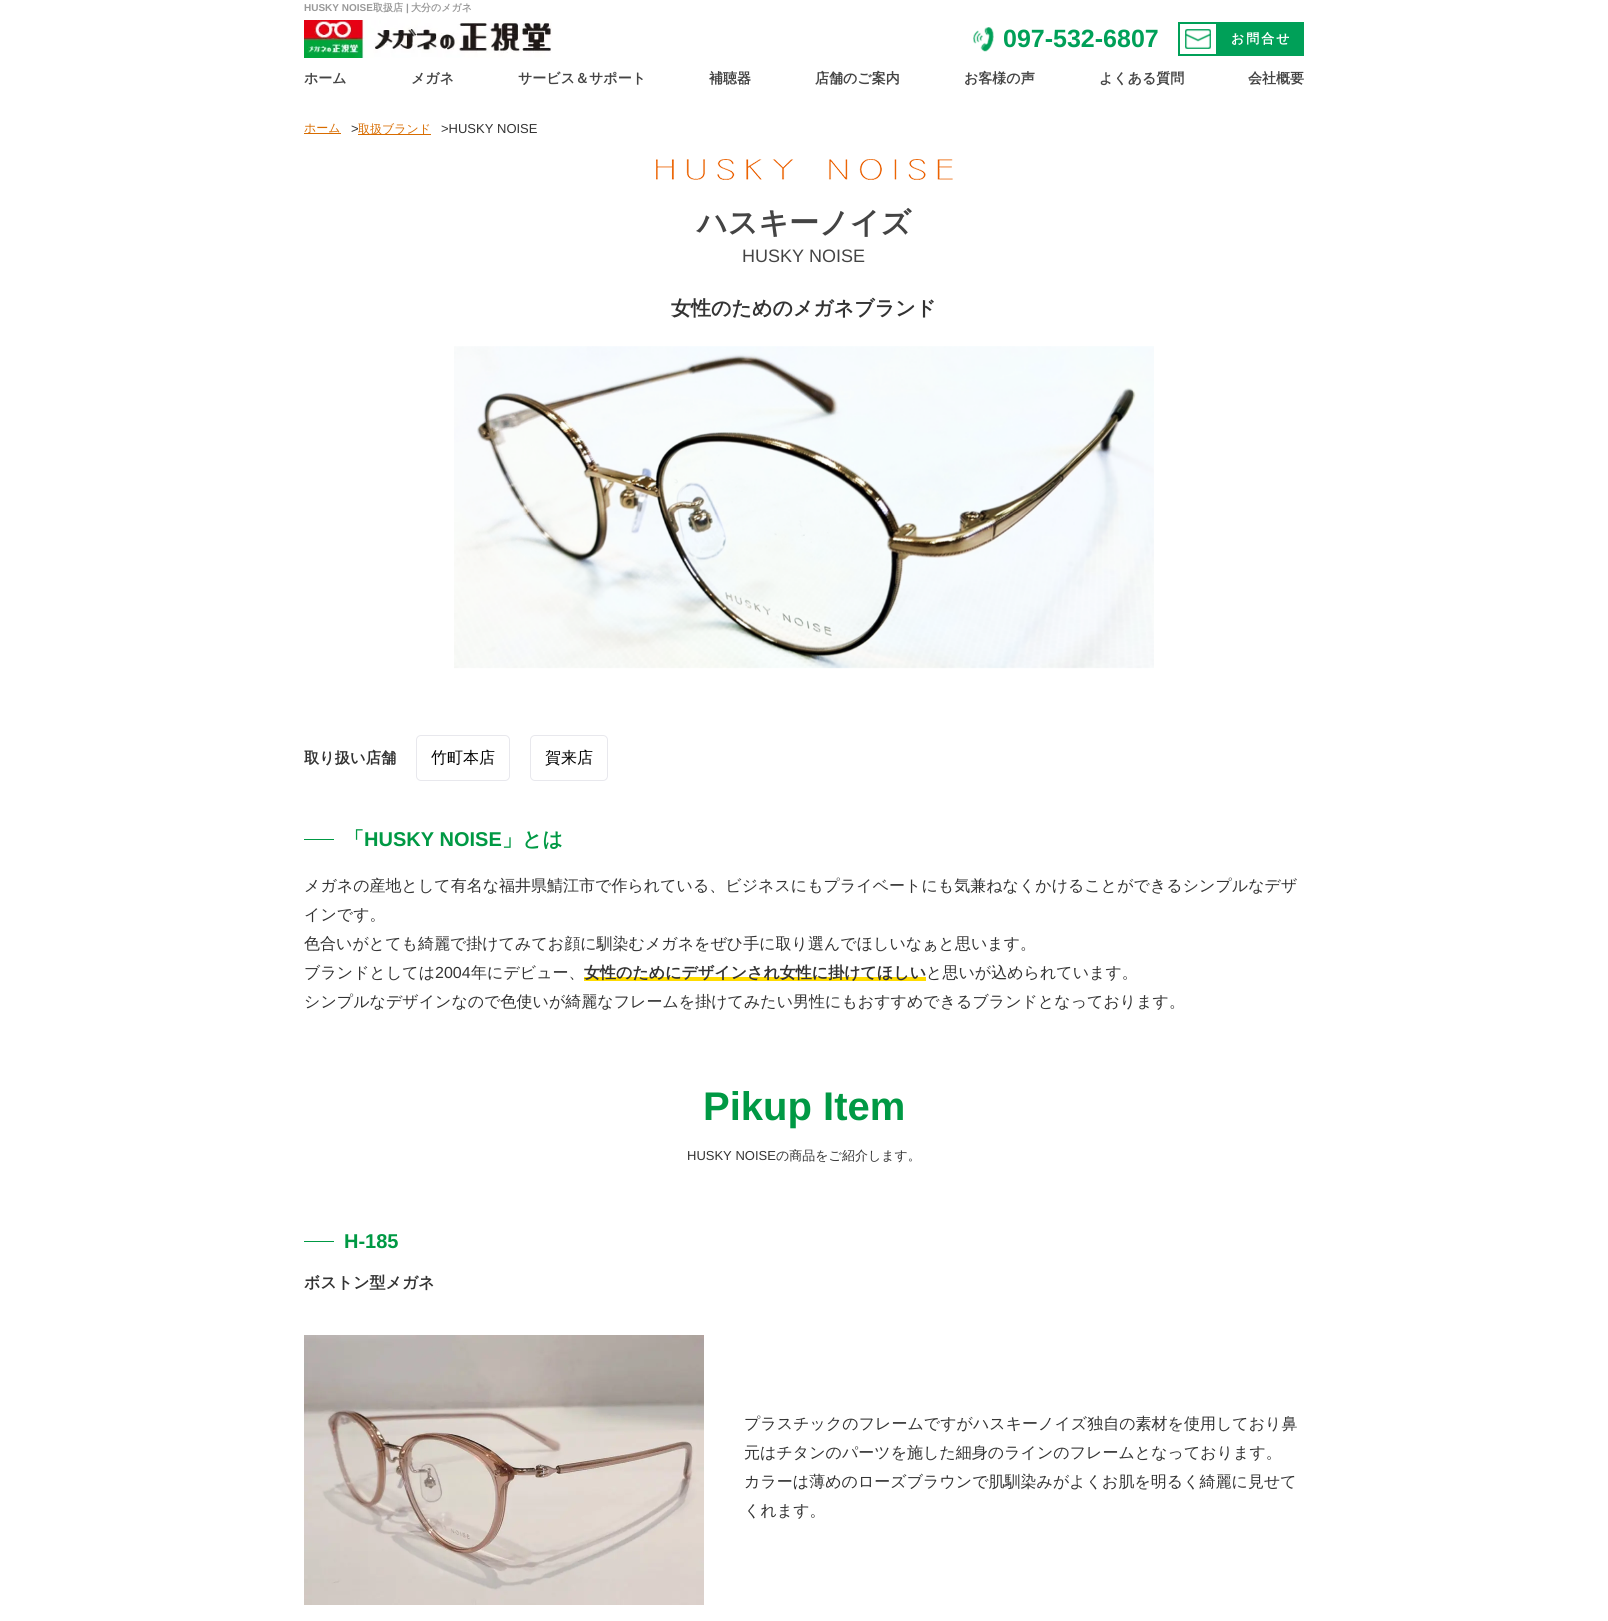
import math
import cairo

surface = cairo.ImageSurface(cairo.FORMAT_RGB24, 1608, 1621)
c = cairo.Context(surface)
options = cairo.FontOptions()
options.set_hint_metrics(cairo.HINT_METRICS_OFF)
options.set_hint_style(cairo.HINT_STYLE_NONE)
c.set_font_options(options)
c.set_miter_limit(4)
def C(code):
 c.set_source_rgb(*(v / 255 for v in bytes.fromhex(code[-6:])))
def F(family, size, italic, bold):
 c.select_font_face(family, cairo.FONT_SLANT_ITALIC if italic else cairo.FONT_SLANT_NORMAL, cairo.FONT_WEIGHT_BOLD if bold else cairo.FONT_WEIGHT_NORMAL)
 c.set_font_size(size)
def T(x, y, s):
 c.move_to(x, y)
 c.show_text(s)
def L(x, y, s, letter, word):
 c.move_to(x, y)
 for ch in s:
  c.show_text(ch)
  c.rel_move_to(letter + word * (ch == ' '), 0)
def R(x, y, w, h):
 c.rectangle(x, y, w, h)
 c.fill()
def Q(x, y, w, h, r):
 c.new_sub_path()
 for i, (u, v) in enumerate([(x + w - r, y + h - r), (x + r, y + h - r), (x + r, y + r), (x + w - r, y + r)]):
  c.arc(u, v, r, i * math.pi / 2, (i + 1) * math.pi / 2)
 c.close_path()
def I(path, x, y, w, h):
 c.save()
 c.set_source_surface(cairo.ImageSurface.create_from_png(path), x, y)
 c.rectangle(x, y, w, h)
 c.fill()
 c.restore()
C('ffffff')
c.paint()
F('Liberation Sans',10,0,1)
C('999999')
T(304,11,'HUSKY NOISE')
F('WenQuanYi Zen Hei',10,0,1)
T(373,11,'取扱店')
F('Liberation Sans',10,0,1)
T(406,11,'|')
F('WenQuanYi Zen Hei',10,0,1)
T(411,11,'大分のメガネ')
I('1.png',304,20,248,38)
I('2.png',973,27,21,25)
F('Liberation Sans',25,0,1)
C('00a058')
T(1003,47,'097-532-6807')
I('3.png',1185,29,26,20)
c.rectangle(1179,23,124,32)
c.stroke()
R(1216,24,86,30)
F('WenQuanYi Zen Hei',13,0,1)
C('ffffff')
L(1231,43,'お問合せ',2,0)
F('WenQuanYi Zen Hei',14,0,1)
C('444444')
T(304,83,'ホーム')
T(411,83,'メガネ')
T(518,83,'サービス＆サポート')
T(709,83,'補聴器')
T(815,83,'店舗のご案内')
T(964,83,'お客様の声')
T(1099,83,'よくある質問')
T(1248,83,'会社概要')
C('d86c00')
R(304,133,37,1)
F('WenQuanYi Zen Hei Medium',12,0,0)
T(304,132,'ホーム')
F('Liberation Sans',13,0,0)
C('333333')
T(351,133,'>')
C('d86c00')
R(358,134,73,1)
F('WenQuanYi Zen Hei Medium',12,0,0)
T(358,133,'取扱ブランド')
F('Liberation Sans',13,0,0)
C('333333')
T(441,133,'>HUSKY NOISE')
I('4.png',656,159,297,21)
F('WenQuanYi Zen Hei',30,0,1)
C('444444')
T(697,233,'ハスキーノイズ')
F('Liberation Sans',18,0,0)
T(742,262,'HUSKY NOISE')
F('WenQuanYi Zen Hei',20,0,1)
C('333333')
T(671,315,'女性のためのメガネブランド')
I('5.png',454,346,700,323)
F('WenQuanYi Zen Hei',15.25,0,1)
T(304,763,'取り扱い店舗')
Q(416.5,735.5,93,45,4.5)
C('e8e8ed')
c.set_line_width(1)
c.stroke()
F('WenQuanYi Zen Hei Medium',16,0,0)
C('000000')
T(431,763,'竹町本店')
Q(530.5,735.5,77,45,4.5)
C('e8e8ed')
c.stroke()
C('000000')
T(545,763,'賀来店')
C('009944')
R(304,839,30,1)
F('WenQuanYi Zen Hei',20,0,1)
T(344,846,'「')
F('Liberation Sans',20,0,1)
T(364,846,'HUSKY NOISE')
F('WenQuanYi Zen Hei',20,0,1)
T(502,846,'」とは')
F('WenQuanYi Zen Hei Medium',16,0,0)
C('333333')
T(304,891,'メガネの産地として有名な福井県鯖江市で作られている、ビジネスにもプライベートにも気兼ねなくかけることができるシンプルなデザ')
T(304,920,'インです。')
T(304,949,'色合いがとても綺麗で掛けてみてお顔に馴染むメガネをぜひ手に取り選んでほしいなぁと思います。')
T(304,978,'ブランドとしては')
F('Liberation Sans',16,0,0)
T(435,978,'2004')
F('WenQuanYi Zen Hei Medium',16,0,0)
T(471,978,'年にデビュー、')
C('ffdc00')
R(584,977,342,4)
F('WenQuanYi Zen Hei',16,0,1)
C('333333')
T(584,978,'女性のためにデザインされ女性に掛けてほしい')
F('WenQuanYi Zen Hei Medium',16,0,0)
T(926,978,'と思いが込められています。')
T(304,1007,'シンプルなデザインなので色使いが綺麗なフレームを掛けてみたい男性にもおすすめできるブランドとなっております。')
F('Liberation Sans',40,0,1)
C('009944')
T(703,1120,'Pikup Item')
F('Liberation Sans',13,0,0)
C('333333')
T(687,1160,'HUSKY NOISE')
F('WenQuanYi Zen Hei Medium',13,0,0)
T(776,1160,'の商品をご紹介します。')
C('009944')
R(304,1241,30,1)
F('Liberation Sans',20,0,1)
T(344,1248,'H-185')
F('WenQuanYi Zen Hei',16,0,1)
C('333333')
T(304,1288,'ボストン型メガネ')
I('6.png',304,1335,400,270)
F('WenQuanYi Zen Hei Medium',16,0,0)
T(744,1429,'プラスチックのフレームですがハスキーノイズ独自の素材を使用しており鼻')
T(744,1458,'元はチタンのパーツを施した細身のラインのフレームとなっております。')
T(744,1487,'カラーは薄めのローズブラウンで肌馴染みがよくお肌を明るく綺麗に見せて')
T(744,1516,'くれます。')
surface.write_to_png('o.png')
